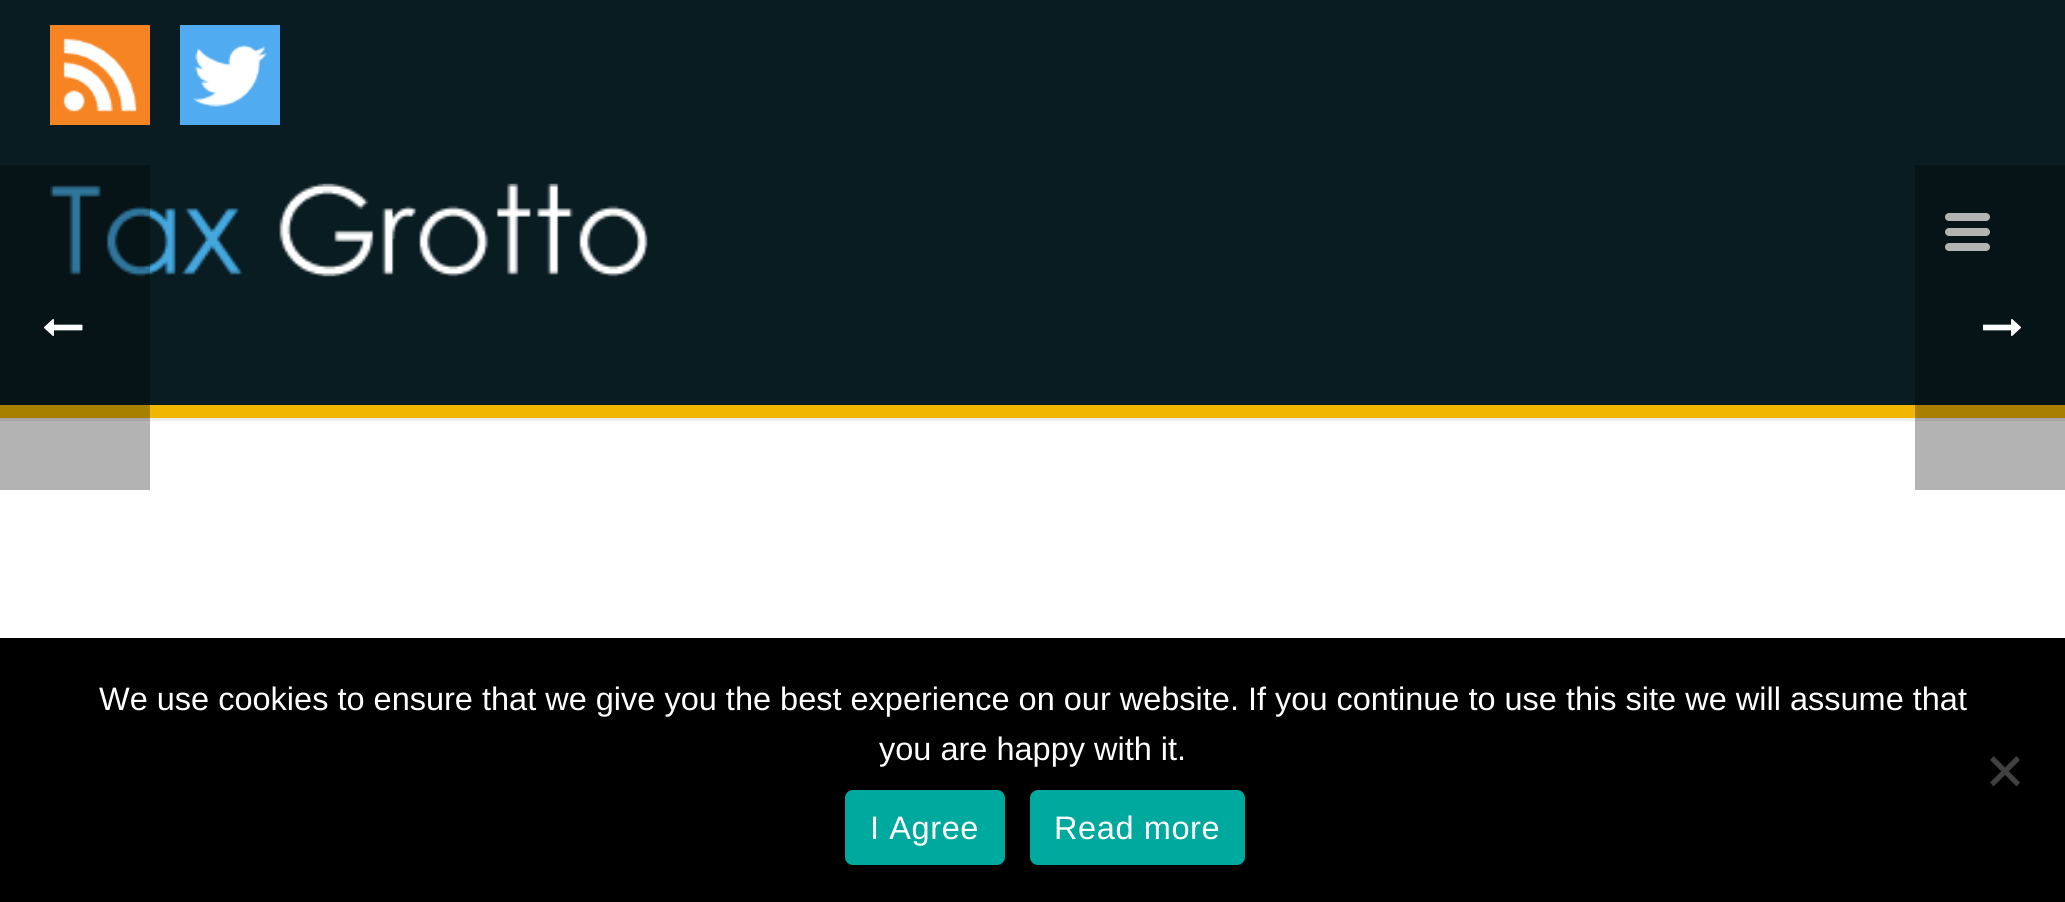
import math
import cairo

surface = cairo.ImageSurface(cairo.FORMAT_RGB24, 2065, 902)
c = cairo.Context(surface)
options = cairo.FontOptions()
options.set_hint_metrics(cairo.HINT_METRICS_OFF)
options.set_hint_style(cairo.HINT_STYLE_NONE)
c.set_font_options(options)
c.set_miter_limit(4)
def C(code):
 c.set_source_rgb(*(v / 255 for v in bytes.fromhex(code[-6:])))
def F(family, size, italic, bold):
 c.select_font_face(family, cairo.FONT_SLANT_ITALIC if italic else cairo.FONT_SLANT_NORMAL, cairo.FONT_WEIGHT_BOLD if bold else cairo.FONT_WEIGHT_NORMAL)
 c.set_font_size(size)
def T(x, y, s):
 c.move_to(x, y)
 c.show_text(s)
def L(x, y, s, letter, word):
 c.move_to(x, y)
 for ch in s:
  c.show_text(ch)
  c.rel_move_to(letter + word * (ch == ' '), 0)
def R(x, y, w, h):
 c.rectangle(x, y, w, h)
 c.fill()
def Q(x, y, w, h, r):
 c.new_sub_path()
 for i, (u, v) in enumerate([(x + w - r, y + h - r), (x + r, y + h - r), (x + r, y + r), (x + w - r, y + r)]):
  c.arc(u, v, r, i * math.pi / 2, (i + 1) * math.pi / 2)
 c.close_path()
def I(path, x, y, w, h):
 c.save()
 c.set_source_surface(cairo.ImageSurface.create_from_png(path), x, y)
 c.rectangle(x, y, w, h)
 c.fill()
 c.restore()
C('ffffff')
c.paint()
C('b3b3b3')
R(1915,421,150,69)
C('ededed')
R(0,418,1915,3)
C('a6a6a6')
R(1915,418,150,3)
C('091c22')
R(0,0,2065,405)
C('061418')
R(1915,165,150,240)
C('f0b600')
R(0,405,1915,13)
C('a87f00')
R(1915,405,150,13)
I('1.png',50,183,598,94)
C('b3b3b3')
Q(1945,213,45,8,4)
c.fill()
Q(1945,228,45,8,4)
c.fill()
Q(1945,243,45,8,4)
c.fill()
I('2.png',50,25,100,100)
I('3.png',180,25,100,100)
c.set_source_rgba(0,0,0,0.3)
R(0,165,150,325)
I('4.png',44,319,39,17)
I('5.png',1983,319,38,17)
C('000000')
R(0,638,2065,264)
F('Liberation Sans',32.5,0,0)
C('ffffff')
T(99,710,'We use cookies to ensure that we give you the best experience on our website. If you continue to use this site we will assume that')
T(879,760,'you are happy with it.')
C('404040')
c.new_path()
c.move_to(2016.5,756)
c.line_to(2020,760)
c.line_to(1993.5,786.5)
c.line_to(1990,782.5)
c.close_path()
c.fill()
c.new_path()
c.move_to(1990,760)
c.line_to(1993.5,756)
c.line_to(2020,782.5)
c.line_to(2016.5,786.5)
c.close_path()
c.fill()
C('00a99d')
Q(845,790,160,75,8)
c.fill()
C('ffffff')
L(870,839,'I Agree',.6,0)
C('00a99d')
Q(1030,790,215,75,8)
c.fill()
C('ffffff')
L(1054,839,'Read more',.6,0)
surface.write_to_png('o.png')
